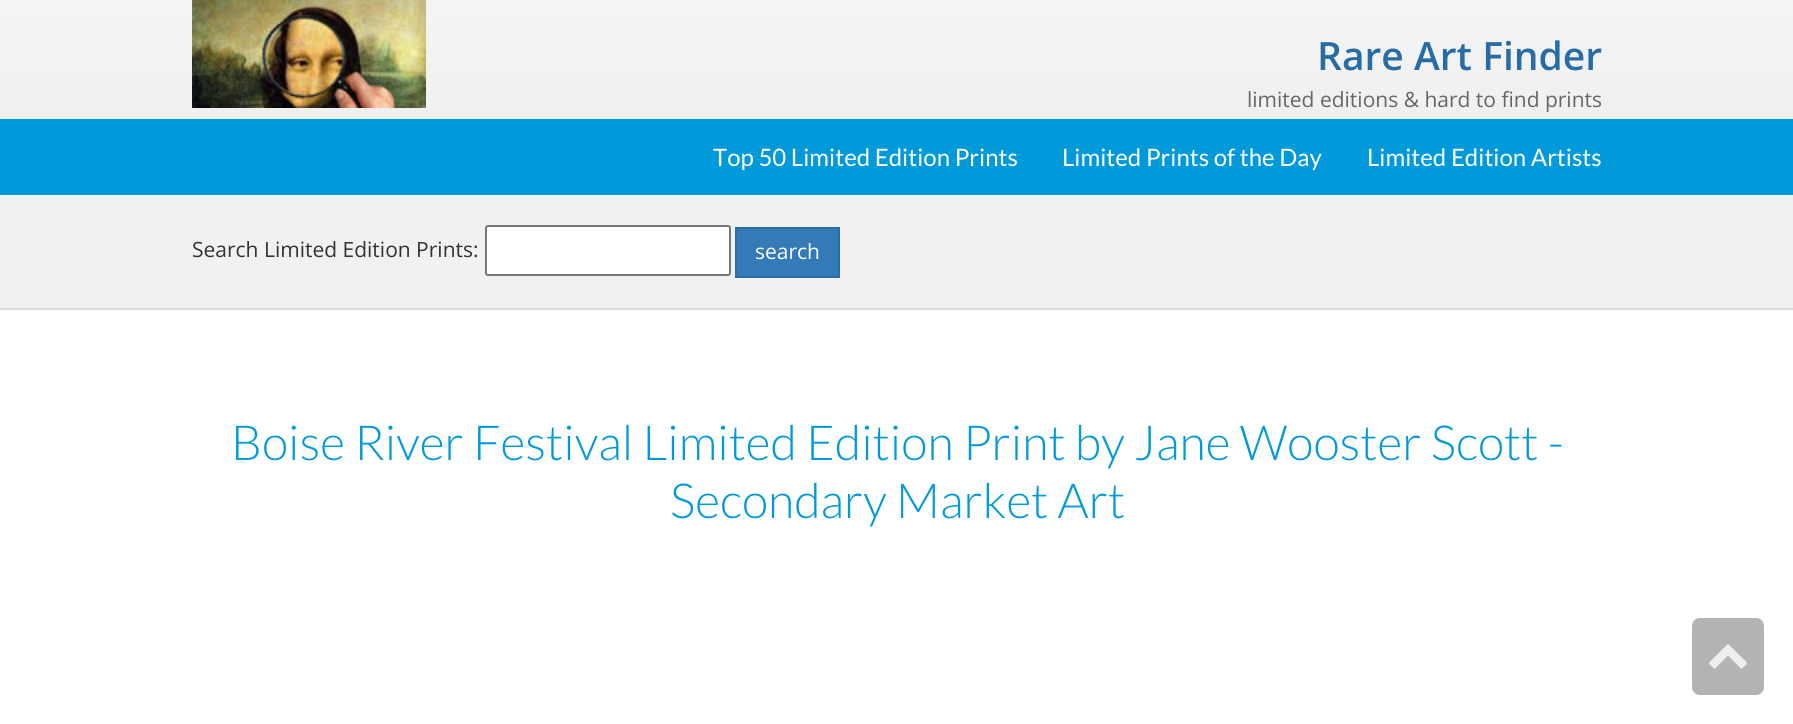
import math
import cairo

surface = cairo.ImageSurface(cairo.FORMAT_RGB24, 1793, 724)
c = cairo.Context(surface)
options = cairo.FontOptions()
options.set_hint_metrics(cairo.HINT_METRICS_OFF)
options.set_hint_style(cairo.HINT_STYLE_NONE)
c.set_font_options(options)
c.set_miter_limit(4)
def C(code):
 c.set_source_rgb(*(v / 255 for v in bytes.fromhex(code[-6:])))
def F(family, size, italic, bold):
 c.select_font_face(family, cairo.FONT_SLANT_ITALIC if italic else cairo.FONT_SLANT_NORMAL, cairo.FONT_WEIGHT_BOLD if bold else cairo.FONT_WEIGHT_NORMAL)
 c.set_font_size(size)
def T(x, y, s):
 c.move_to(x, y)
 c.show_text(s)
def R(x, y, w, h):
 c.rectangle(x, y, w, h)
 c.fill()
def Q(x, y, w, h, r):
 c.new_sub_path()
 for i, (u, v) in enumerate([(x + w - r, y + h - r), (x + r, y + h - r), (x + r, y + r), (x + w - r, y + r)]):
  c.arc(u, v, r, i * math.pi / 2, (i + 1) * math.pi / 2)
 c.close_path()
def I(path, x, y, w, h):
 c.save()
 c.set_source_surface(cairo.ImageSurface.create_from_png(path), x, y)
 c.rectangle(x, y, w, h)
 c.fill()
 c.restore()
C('ffffff')
c.paint()
gradient = cairo.LinearGradient(897,119,897,0)
gradient.add_color_stop_rgba(0,0.941,0.941,0.941,1)
gradient.add_color_stop_rgba(1,0.957,0.957,0.957,1)
c.set_source(gradient)
R(0,0,1793,119)
I('1.png',192,0,234,108)
F('Open Sans SemiBold',39,0,0)
C('286ca5')
T(1317,70,'Rare Art Finder')
F('Open Sans',21,0,0)
C('666666')
T(1247,107,'limited editions & hard to find prints')
C('0099da')
R(0,119,1793,76)
F('Lato',24,0,0)
C('ffffff')
T(713,166,'Top 50 Limited Edition Prints')
T(1062,166,'Limited Prints of the Day')
T(1367,166,'Limited Edition Artists')
C('f1f1f1')
R(0,195,1793,113)
C('dddddd')
R(0,308,1793,2)
F('Open Sans',21,0,0)
C('333333')
T(192,257,'Search Limited Edition Prints:')
C('ffffff')
Q(486,226,244,49,2)
c.fill_preserve()
C('767676')
c.stroke()
C('337ab7')
c.rectangle(736,228,103,49)
c.fill_preserve()
C('2e6da4')
c.stroke()
C('ffffff')
T(755,259,'search')
F('Lato Light',48.3,0,0)
C('0099da')
T(231,460,'Boise River Festival Limited Edition Print by Jane Wooster Scott -')
T(670,518,'Secondary Market Art')
C('b3b3b3')
Q(1692,618,72,77,8)
c.fill()
I('2.png',1709,644,38,25)
surface.write_to_png('o.png')
